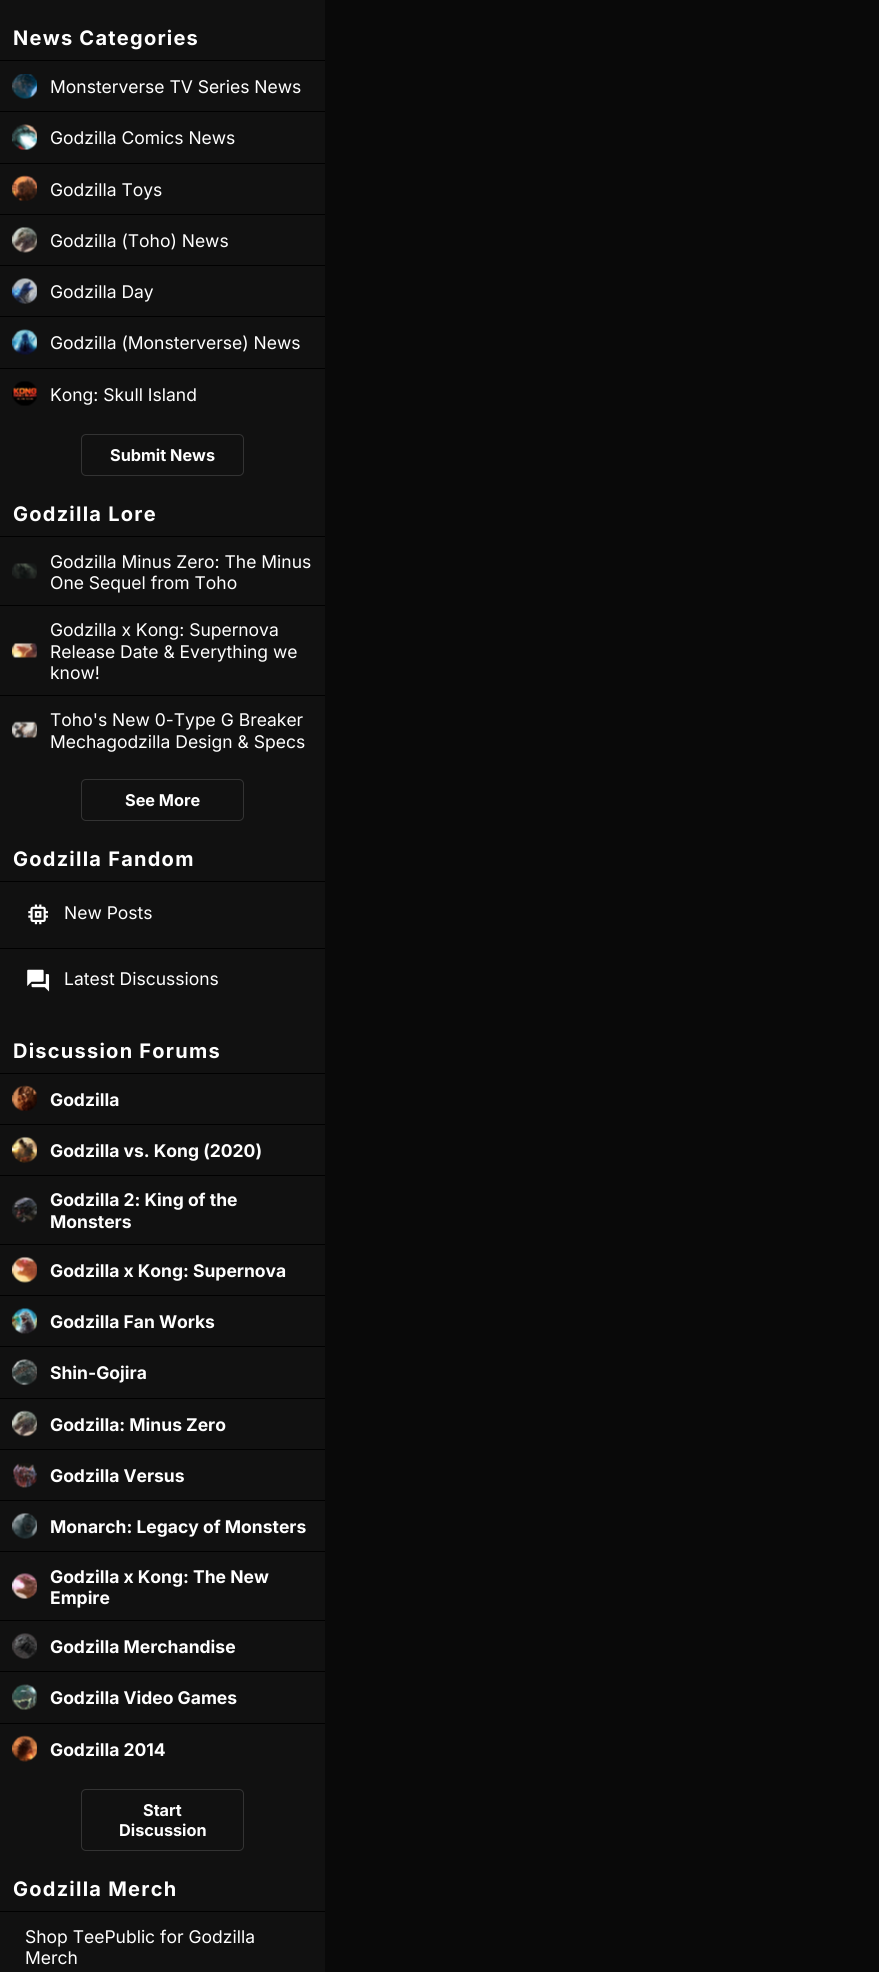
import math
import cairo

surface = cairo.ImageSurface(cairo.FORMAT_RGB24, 879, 1972)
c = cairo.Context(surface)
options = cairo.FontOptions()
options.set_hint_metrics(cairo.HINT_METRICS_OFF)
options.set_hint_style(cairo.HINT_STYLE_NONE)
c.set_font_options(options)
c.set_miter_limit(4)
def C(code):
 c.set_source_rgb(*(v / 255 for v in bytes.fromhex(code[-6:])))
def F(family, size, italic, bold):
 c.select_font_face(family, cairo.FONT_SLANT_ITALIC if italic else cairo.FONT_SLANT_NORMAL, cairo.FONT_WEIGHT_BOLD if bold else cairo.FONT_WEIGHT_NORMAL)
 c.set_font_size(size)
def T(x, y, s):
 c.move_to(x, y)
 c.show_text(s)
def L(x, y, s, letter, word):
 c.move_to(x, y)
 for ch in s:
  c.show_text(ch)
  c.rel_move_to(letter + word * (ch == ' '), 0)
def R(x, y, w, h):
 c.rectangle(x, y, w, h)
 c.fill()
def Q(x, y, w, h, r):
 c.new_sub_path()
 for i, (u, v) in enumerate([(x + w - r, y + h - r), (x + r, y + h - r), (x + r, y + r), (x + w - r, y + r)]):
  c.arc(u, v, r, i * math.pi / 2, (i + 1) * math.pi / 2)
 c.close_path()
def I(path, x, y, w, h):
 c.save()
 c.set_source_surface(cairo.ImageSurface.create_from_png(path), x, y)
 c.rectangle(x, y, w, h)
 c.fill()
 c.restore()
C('090909')
c.paint()
C('111111')
R(0,0,325,1972)
F('Inter',20,0,1)
C('ffffff')
L(13,45,'News Categories',1.25,0)
C('010101')
R(0,60,325,1)
I('1.png',12,74,25,25)
F('Inter',17.5,0,0)
C('ffffff')
T(50,93,'Monsterverse TV Series News')
C('010101')
R(0,111,325,1)
I('2.png',12,124,25,26)
C('ffffff')
T(50,144,'Godzilla Comics News')
C('010101')
R(0,163,325,1)
I('3.png',12,175,25,26)
C('ffffff')
T(50,196,'Godzilla Toys')
C('010101')
R(0,214,325,1)
I('4.png',12,227,25,26)
C('ffffff')
T(50,247,'Godzilla (Toho) News')
C('010101')
R(0,265,325,1)
I('5.png',12,278,25,26)
C('ffffff')
T(50,298,'Godzilla Day')
C('010101')
R(0,316,325,1)
I('6.png',12,329,25,26)
C('ffffff')
T(50,349,'Godzilla (Monsterverse) News')
C('010101')
R(0,368,325,1)
I('7.png',12,381,25,25)
C('ffffff')
T(50,401,'Kong: Skull Island')
Q(81.5,434.5,162,41,4.5)
C('333333')
c.set_line_width(1)
c.stroke()
F('Inter',16.25,0,1)
C('ffffff')
T(110,461,'Submit News')
F('Inter',20,0,1)
L(13,521,'Godzilla Lore',1.25,0)
C('010101')
R(0,536,325,1)
I('8.png',12,563,25,16)
F('Inter',17.5,0,0)
C('ffffff')
T(50,568,'Godzilla Minus Zero: The Minus')
T(50,589,'One Sequel from Toho')
C('010101')
R(0,605,325,1)
I('9.png',12,643,25,15)
C('ffffff')
T(50,636,'Godzilla x Kong: Supernova')
T(50,658,'Release Date & Everything we')
T(50,679,'know!')
C('010101')
R(0,695,325,1)
I('10.png',12,721,25,17)
C('ffffff')
T(50,726,'Toho\'s New 0-Type G Breaker')
T(50,748,'Mechagodzilla Design & Specs')
Q(81.5,779.5,162,41,4.5)
C('333333')
c.stroke()
F('Inter',16.25,0,1)
C('ffffff')
T(125,806,'See More')
F('Inter',20,0,1)
L(13,866,'Godzilla Fandom',1.25,0)
C('010101')
R(0,881,325,1)
I('11.png',28,904,20,21)
F('Inter',17.5,0,0)
C('ffffff')
T(64,919,'New Posts')
C('010101')
R(0,948,325,1)
I('12.png',27,969,23,23)
C('ffffff')
T(64,985,'Latest Discussions')
F('Inter',20,0,1)
L(13,1058,'Discussion Forums',1.25,0)
C('010101')
R(0,1073,325,1)
I('13.png',12,1085,25,26)
F('Inter',17.5,0,1)
C('ffffff')
T(50,1106,'Godzilla')
C('010101')
R(0,1124,325,1)
I('14.png',12,1136,25,27)
C('ffffff')
T(50,1157,'Godzilla vs. Kong (2020)')
C('010101')
R(0,1175,325,1)
I('15.png',12,1197,25,26)
C('ffffff')
T(50,1206,'Godzilla 2: King of the')
T(50,1228,'Monsters')
C('010101')
R(0,1244,325,1)
I('16.png',12,1256,25,27)
C('ffffff')
T(50,1277,'Godzilla x Kong: Supernova')
C('010101')
R(0,1295,325,1)
I('17.png',12,1308,25,26)
C('ffffff')
T(50,1328,'Godzilla Fan Works')
C('010101')
R(0,1346,325,1)
I('18.png',12,1359,25,27)
C('ffffff')
T(50,1379,'Shin-Gojira')
C('010101')
R(0,1398,325,1)
I('19.png',12,1410,25,27)
C('ffffff')
T(50,1431,'Godzilla: Minus Zero')
C('010101')
R(0,1449,325,1)
I('20.png',12,1463,25,25)
C('ffffff')
T(50,1482,'Godzilla Versus')
C('010101')
R(0,1500,325,1)
I('21.png',12,1513,25,26)
C('ffffff')
T(50,1533,'Monarch: Legacy of Monsters')
C('010101')
R(0,1551,325,1)
I('22.png',12,1573,25,26)
C('ffffff')
T(50,1583,'Godzilla x Kong: The New')
T(50,1604,'Empire')
C('010101')
R(0,1620,325,1)
I('23.png',12,1633,25,26)
C('ffffff')
T(50,1653,'Godzilla Merchandise')
C('010101')
R(0,1671,325,1)
I('24.png',12,1684,25,26)
C('ffffff')
T(50,1704,'Godzilla Video Games')
C('010101')
R(0,1723,325,1)
I('25.png',12,1735,25,27)
C('ffffff')
T(50,1756,'Godzilla 2014')
Q(81.5,1789.5,162,61,4.5)
C('333333')
c.stroke()
F('Inter',16.25,0,1)
C('ffffff')
T(143,1816,'Start')
T(119,1836,'Discussion')
F('Inter',20,0,1)
L(13,1896,'Godzilla Merch',1.25,0)
C('010101')
R(0,1911,325,1)
F('Inter',17.5,0,0)
C('ffffff')
T(25,1943,'Shop TeePublic for Godzilla')
T(25,1964,'Merch')
surface.write_to_png('o.png')
